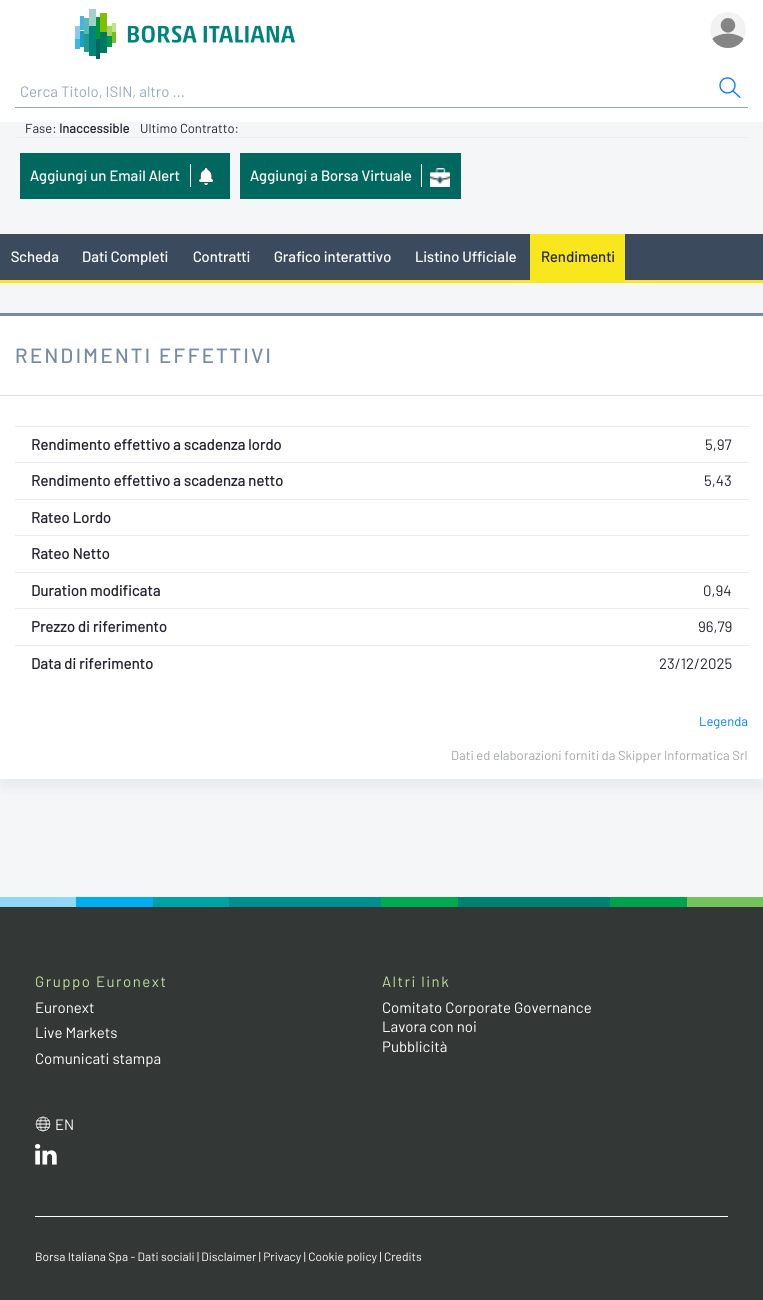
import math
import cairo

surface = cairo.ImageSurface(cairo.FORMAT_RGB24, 763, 1300)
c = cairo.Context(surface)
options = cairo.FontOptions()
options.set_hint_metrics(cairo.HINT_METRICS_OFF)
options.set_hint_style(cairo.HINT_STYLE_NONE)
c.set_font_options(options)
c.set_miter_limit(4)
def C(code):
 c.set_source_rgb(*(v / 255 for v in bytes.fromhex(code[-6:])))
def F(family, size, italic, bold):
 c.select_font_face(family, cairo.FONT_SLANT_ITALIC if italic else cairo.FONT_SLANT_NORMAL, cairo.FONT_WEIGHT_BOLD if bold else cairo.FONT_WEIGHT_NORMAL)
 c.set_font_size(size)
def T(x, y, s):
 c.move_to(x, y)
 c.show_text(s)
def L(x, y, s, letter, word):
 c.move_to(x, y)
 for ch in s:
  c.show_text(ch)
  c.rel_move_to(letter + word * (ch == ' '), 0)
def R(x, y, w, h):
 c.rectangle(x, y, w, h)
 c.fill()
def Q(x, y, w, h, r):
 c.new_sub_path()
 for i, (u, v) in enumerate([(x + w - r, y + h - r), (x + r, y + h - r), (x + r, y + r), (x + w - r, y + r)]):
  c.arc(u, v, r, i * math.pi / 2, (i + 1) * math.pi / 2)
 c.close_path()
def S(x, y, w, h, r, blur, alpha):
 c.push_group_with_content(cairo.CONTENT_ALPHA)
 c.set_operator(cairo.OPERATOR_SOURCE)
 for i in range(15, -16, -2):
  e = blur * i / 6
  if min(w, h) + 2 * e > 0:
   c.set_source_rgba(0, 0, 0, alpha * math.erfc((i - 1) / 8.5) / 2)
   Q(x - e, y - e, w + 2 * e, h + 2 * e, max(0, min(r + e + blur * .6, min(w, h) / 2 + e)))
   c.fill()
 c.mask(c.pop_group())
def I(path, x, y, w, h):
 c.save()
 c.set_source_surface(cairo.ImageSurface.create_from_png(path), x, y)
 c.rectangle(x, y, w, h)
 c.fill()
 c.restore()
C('f5f6f7')
c.paint()
C('ffffff')
R(0,0,763,122)
I('1.png',75,9,220,50)
I('2.png',710,12,36,36)
C('98a9bc')
R(15,107,733,1)
F('Barlow',15,0,0)
T(20,97,'Cerca Titolo, ISIN, altro ...')
I('3.png',719,77,22,21)
F('Barlow',13,0,0)
C('252631')
T(25,133,'Fase:')
F('Barlow',13,0,1)
T(59,133,'Inaccessible')
F('Barlow',13,0,0)
T(140,133,'Ultimo Contratto:')
C('eeeeee')
R(15,137,733,1)
C('00685e')
R(20,153,210,46)
F('Barlow Medium',15,0,0)
C('ffffff')
T(30,181,'Aggiungi un Email Alert')
R(190,164,1,23)
I('4.png',199,168,14,18)
C('00685e')
R(240,153,221,46)
C('ffffff')
T(250,181,'Aggiungi a Borsa Virtuale')
R(421,164,1,23)
I('5.png',430,168,20,19)
C('3b4b5d')
R(0,234,763,46)
C('f8e71c')
R(0,280,763,3)
C('ffffff')
T(11,262,'Scheda')
T(82,262,'Dati Completi')
T(193,262,'Contratti')
T(274,262,'Grafico interattivo')
T(415,262,'Listino Ufficiale')
C('f8e71c')
R(530,234,95,46)
C('252631')
T(541,262,'Rendimenti')
C('778ca2')
S(0,323,763,466,0,5,.1)
C('ffffff')
R(0,316,763,463)
C('778ca2')
R(0,313,763,3)
C('dfdfdf')
R(0,395,763,1)
F('Barlow Medium',20.6,0,0)
C('778ca2')
L(15,363,'RENDIMENTI EFFETTIVI',2.5,0)
C('e8ecef')
R(15,426,734,1)
F('Barlow',15,0,1)
C('252631')
T(31,450,'Rendimento effettivo a scadenza lordo')
F('Barlow',15,0,0)
T(705,450,'5,97')
C('e8ecef')
R(15,462,734,1)
F('Barlow',15,0,1)
C('252631')
T(31,486,'Rendimento effettivo a scadenza netto')
F('Barlow',15,0,0)
T(704,486,'5,43')
C('e8ecef')
R(15,499,734,1)
F('Barlow',15,0,1)
C('252631')
T(31,523,'Rateo Lordo')
C('e8ecef')
R(15,535,734,1)
C('252631')
T(31,559,'Rateo Netto')
C('e8ecef')
R(15,572,734,1)
C('252631')
T(31,596,'Duration modificata')
F('Barlow',15,0,0)
T(703,596,'0,94')
C('e8ecef')
R(15,608,734,1)
F('Barlow',15,0,1)
C('252631')
T(31,632,'Prezzo di riferimento')
F('Barlow',15,0,0)
T(698,632,'96,79')
C('e8ecef')
R(15,645,734,1)
F('Barlow',15,0,1)
C('252631')
T(31,669,'Data di riferimento')
F('Barlow',15,0,0)
T(659,669,'23/12/2025')
F('Barlow',13,0,0)
C('007aff')
T(699,726,'Legenda')
C('a2a6ab')
T(451,760,'Dati ed elaborazioni forniti da Skipper Informatica Srl')
C('8fd9f7')
R(0,897,76,10)
C('00adf0')
R(76,897,77,10)
C('00a3a3')
R(153,897,76,10)
C('008f8f')
R(229,897,152,10)
C('00ab4f')
R(381,897,77,10)
C('008273')
R(458,897,152,10)
C('00a34d')
R(610,897,77,10)
C('75c25c')
R(687,897,76,10)
C('333836')
R(0,907,763,393)
F('Barlow',15,0,0)
C('c1de9b')
L(35,987,'Gruppo Euronext',1.5,0)
C('ffffff')
T(35,1013,'Euronext')
T(35,1038,'Live Markets')
T(35,1064,'Comunicati stampa')
C('c1de9b')
L(382,987,'Altri link',1.5,0)
C('ffffff')
T(382,1013,'Comitato Corporate Governance')
T(382,1032,'Lavora con noi')
T(382,1052,'Pubblicità')
I('6.png',35,1116,16,16)
T(55,1130,'EN')
I('7.png',35,1144,22,21)
R(35,1216,693,1)
F('Barlow',12,0,0)
T(35,1261,'Borsa Italiana Spa - Dati sociali | Disclaimer | Privacy | Cookie policy | Credits')
surface.write_to_png('o.png')
